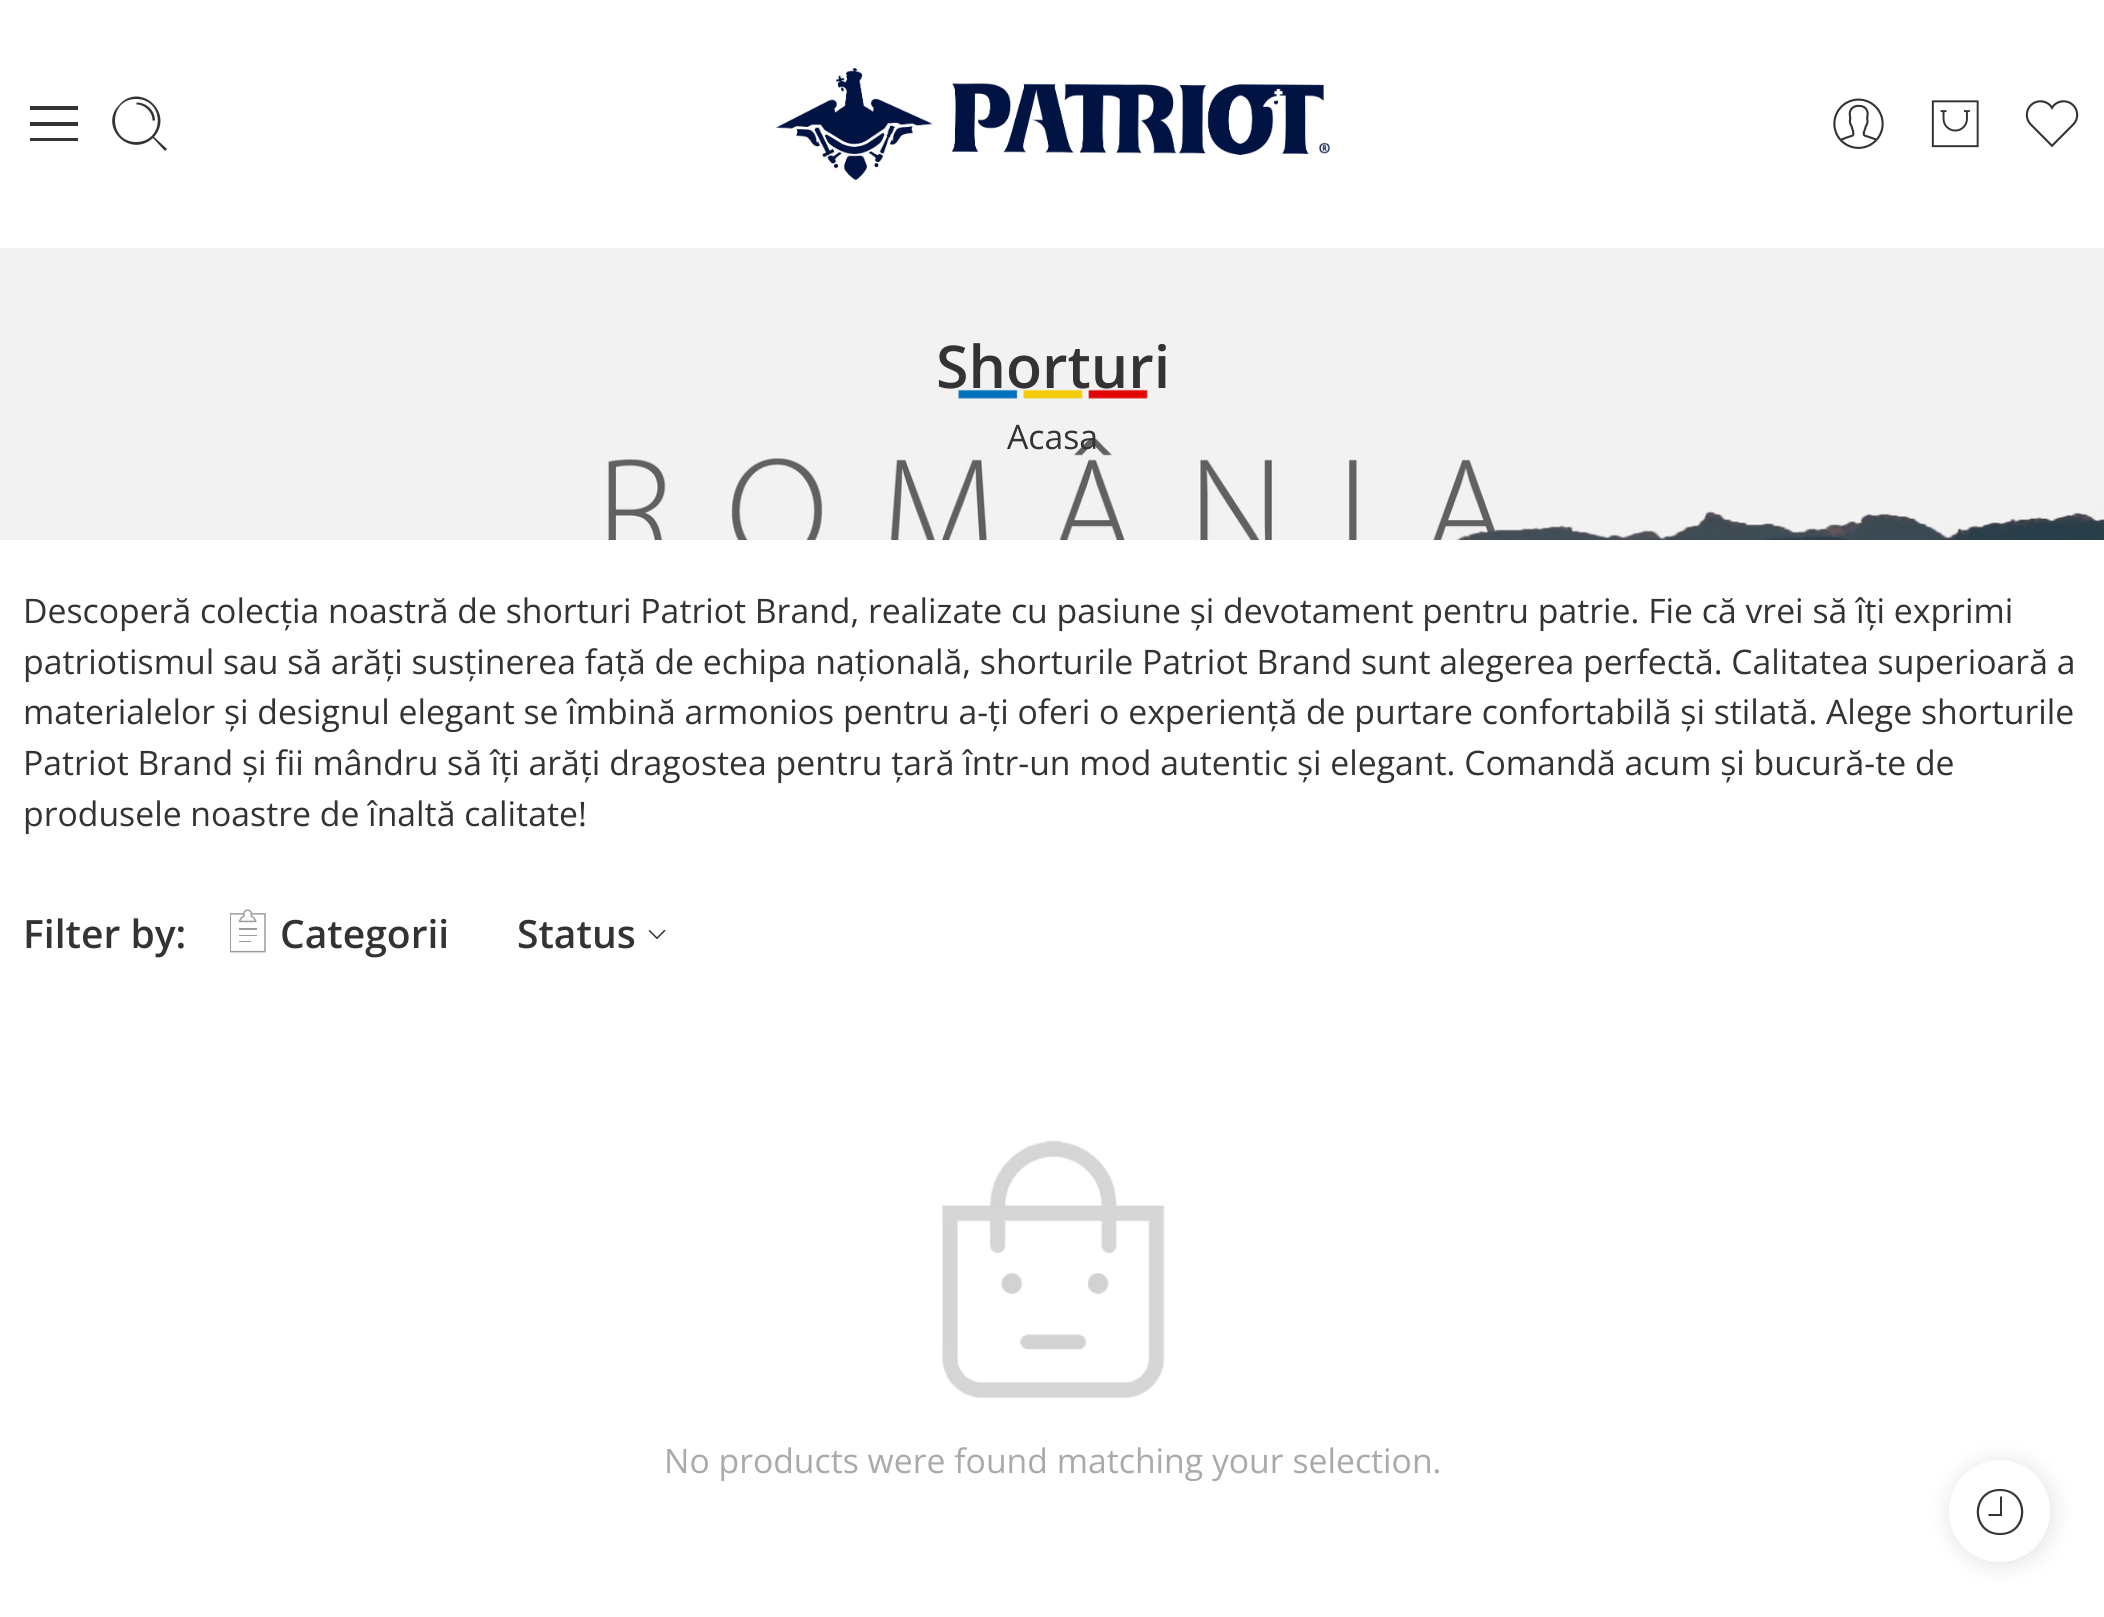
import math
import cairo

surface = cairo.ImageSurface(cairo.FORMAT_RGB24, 2104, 1617)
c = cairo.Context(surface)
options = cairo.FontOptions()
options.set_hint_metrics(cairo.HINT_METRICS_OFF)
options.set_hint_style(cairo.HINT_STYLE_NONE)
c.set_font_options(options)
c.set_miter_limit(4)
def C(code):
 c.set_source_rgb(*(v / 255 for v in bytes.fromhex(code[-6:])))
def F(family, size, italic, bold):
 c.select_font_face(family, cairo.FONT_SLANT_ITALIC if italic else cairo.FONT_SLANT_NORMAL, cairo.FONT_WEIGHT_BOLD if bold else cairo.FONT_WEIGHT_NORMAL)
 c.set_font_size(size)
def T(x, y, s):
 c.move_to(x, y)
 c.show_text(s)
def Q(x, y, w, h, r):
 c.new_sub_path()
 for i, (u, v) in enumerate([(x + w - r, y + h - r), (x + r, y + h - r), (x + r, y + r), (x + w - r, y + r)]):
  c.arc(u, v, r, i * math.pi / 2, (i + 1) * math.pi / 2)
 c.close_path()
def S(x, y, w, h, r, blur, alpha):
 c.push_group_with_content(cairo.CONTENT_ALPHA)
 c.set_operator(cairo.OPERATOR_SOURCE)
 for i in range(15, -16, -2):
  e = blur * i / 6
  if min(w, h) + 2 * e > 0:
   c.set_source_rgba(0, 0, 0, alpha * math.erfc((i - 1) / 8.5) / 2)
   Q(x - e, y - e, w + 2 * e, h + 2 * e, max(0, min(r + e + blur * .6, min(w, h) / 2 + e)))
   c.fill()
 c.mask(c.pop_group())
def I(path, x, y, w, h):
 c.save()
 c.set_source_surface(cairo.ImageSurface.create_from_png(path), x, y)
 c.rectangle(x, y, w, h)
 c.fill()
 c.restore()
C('ffffff')
c.paint()
C('333333')
c.new_path()
c.move_to(30,106)
c.line_to(30,110)
c.line_to(78,110)
c.line_to(78,106)
c.close_path()
c.move_to(30,122)
c.line_to(30,126)
c.line_to(78,126)
c.line_to(78,122)
c.close_path()
c.move_to(30,138)
c.line_to(30,141)
c.line_to(78,141)
c.line_to(78,138)
c.close_path()
c.fill()
c.new_path()
c.move_to(167,149)
c.line_to(154,137)
c.curve_to(175,113,140,81,119,105)
c.curve_to(98,127,130,159,153,138)
c.line_to(165,151)
c.close_path()
c.move_to(136,142)
c.curve_to(108,142,108,99,136,99)
c.curve_to(165,99,165,142,136,142)
c.close_path()
c.fill()
c.new_path()
c.move_to(136.5,102.5)
c.line_to(136.5,104.5)
c.curve_to(145,104.5,152.5,112,152.5,120.5)
c.line_to(155,120.5)
c.curve_to(155,110.5,146.5,102.5,136.5,102.5)
c.close_path()
c.fill()
I('1.png',776,68,554,112)
I('2.png',1833,98,51,51)
I('3.png',1931,100,48,48)
I('4.png',2025,100,54,48)
I('5.png',0,248,2104,292)
F('Open Sans SemiBold',59,0,0)
T(936,388,'Shorturi')
F('Open Sans',33.75,0,0)
T(1007,449,'Acasa')
T(23,623,'Descoperă colecția noastră de shorturi Patriot Brand, realizate cu pasiune și devotament pentru patrie. Fie că vrei să îți exprimi')
T(23,674,'patriotismul sau să arăți susținerea față de echipa națională, shorturile Patriot Brand sunt alegerea perfectă. Calitatea superioară a')
T(23,724,'materialelor și designul elegant se îmbină armonios pentru a-ți oferi o experiență de purtare confortabilă și stilată. Alege shorturile')
T(23,775,'Patriot Brand și fii mândru să îți arăți dragostea pentru țară într-un mod autentic și elegant. Comandă acum și bucură-te de')
T(23,826,'produsele noastre de înaltă calitate!')
F('Open Sans SemiBold',39,0,0)
T(23,948,'Filter by:')
I('6.png',230,909,36,44)
T(280,948,'Categorii')
T(517,948,'Status')
I('7.png',648,929,18,11)
I('8.png',941,1140,224,259)
F('Open Sans',33.75,0,0)
C('aaaaaa')
T(664,1473,'No products were found matching your selection.')
C('000000')
S(1949,1460,105,106,52.5,11,.1)
C('ffffff')
Q(1949,1460,101,102,50.5)
c.fill()
C('333333')
c.new_path()
c.move_to(2000,1489)
c.curve_to(1969,1489,1969,1535,2000,1535)
c.curve_to(2031,1535,2031,1489,2000,1489)
c.close_path()
c.move_to(2000,1533)
c.curve_to(1972,1533,1972,1491,2000,1491)
c.curve_to(2028,1491,2028,1533,2000,1533)
c.close_path()
c.fill()
c.new_path()
c.move_to(2000,1514)
c.line_to(1988.5,1514)
c.line_to(1988.5,1516)
c.line_to(2002,1516)
c.line_to(2002,1496.5)
c.line_to(2000,1496.5)
c.close_path()
c.fill()
surface.write_to_png('o.png')
